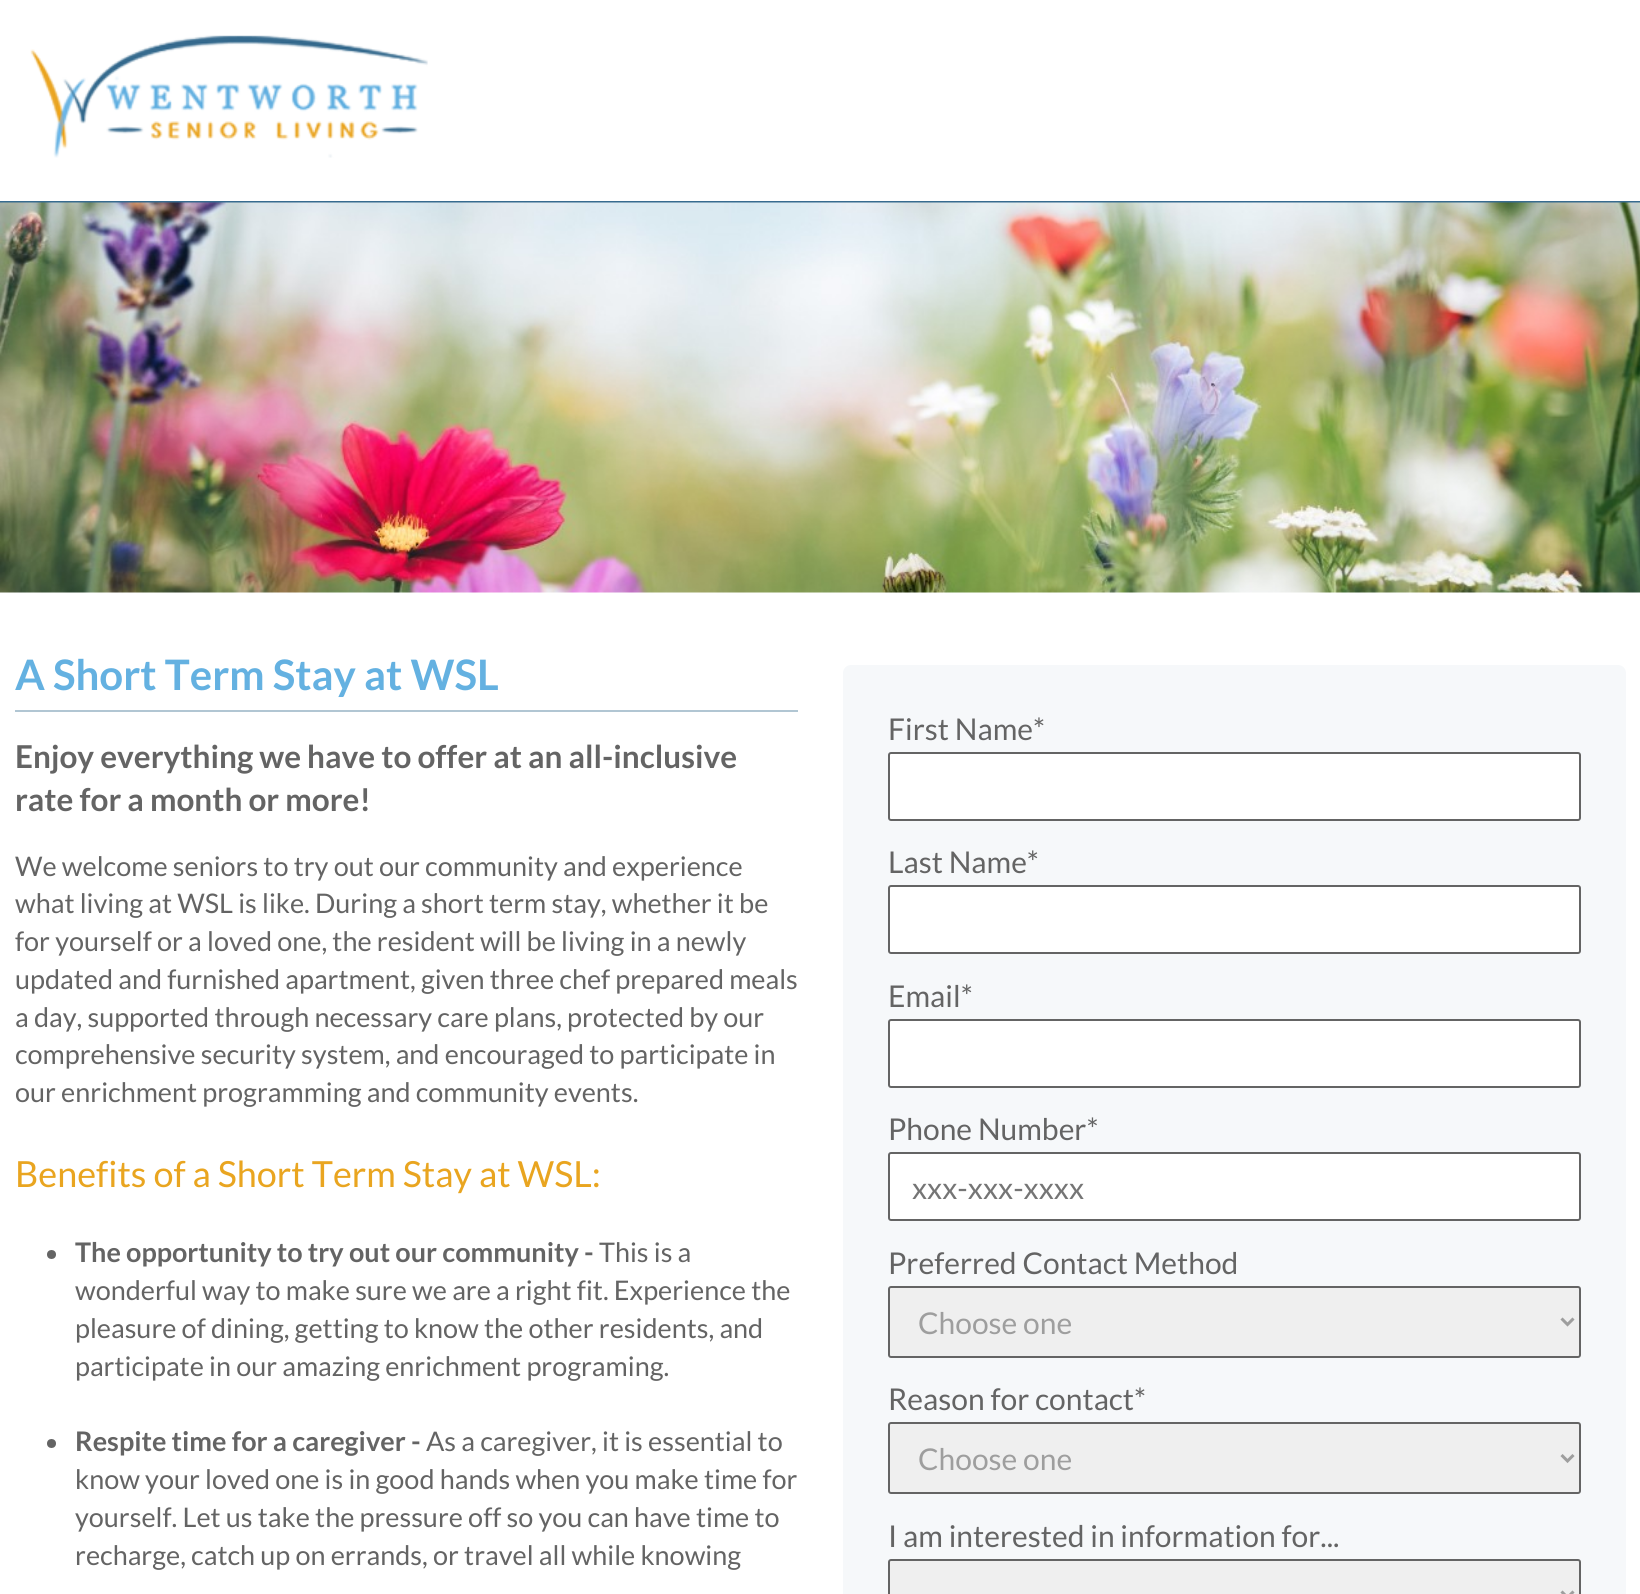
import math
import cairo

surface = cairo.ImageSurface(cairo.FORMAT_RGB24, 1640, 1594)
c = cairo.Context(surface)
options = cairo.FontOptions()
options.set_hint_metrics(cairo.HINT_METRICS_OFF)
options.set_hint_style(cairo.HINT_STYLE_NONE)
c.set_font_options(options)
c.set_miter_limit(4)
def C(code):
 c.set_source_rgb(*(v / 255 for v in bytes.fromhex(code[-6:])))
def F(family, size, italic, bold):
 c.select_font_face(family, cairo.FONT_SLANT_ITALIC if italic else cairo.FONT_SLANT_NORMAL, cairo.FONT_WEIGHT_BOLD if bold else cairo.FONT_WEIGHT_NORMAL)
 c.set_font_size(size)
def T(x, y, s):
 c.move_to(x, y)
 c.show_text(s)
def R(x, y, w, h):
 c.rectangle(x, y, w, h)
 c.fill()
def Q(x, y, w, h, r):
 c.new_sub_path()
 for i, (u, v) in enumerate([(x + w - r, y + h - r), (x + r, y + h - r), (x + r, y + r), (x + w - r, y + r)]):
  c.arc(u, v, r, i * math.pi / 2, (i + 1) * math.pi / 2)
 c.close_path()
def I(path, x, y, w, h):
 c.save()
 c.set_source_surface(cairo.ImageSurface.create_from_png(path), x, y)
 c.rectangle(x, y, w, h)
 c.fill()
 c.restore()
C('ffffff')
c.paint()
C('376b8f')
R(0,201,1640,2)
I('1.png',30,35,398,123)
I('2.png',0,202,1640,391)
C('b1c6d3')
R(15,710,783,2)
F('Lato',42,0,1)
C('64b1e1')
T(15,690,'A Short Term Stay at WSL')
F('Lato',31.5,0,1)
C('646464')
T(15,768,'Enjoy everything we have to offer at an all-inclusive')
T(15,811,'rate for a month or more!')
F('Lato',27,0,0)
T(15,876,'We welcome seniors to try out our community and experience')
T(15,913,'what living at WSL is like. During a short term stay, whether it be')
T(15,951,'for yourself or a loved one, the resident will be living in a newly')
T(15,989,'updated and furnished apartment, given three chef prepared meals')
T(15,1027,'a day, supported through necessary care plans, protected by our')
T(15,1064,'comprehensive security system, and encouraged to participate in')
T(15,1102,'our enrichment programming and community events.')
F('Lato',36,0,0)
C('e9a520')
T(15,1187,'Benefits of a Short Term Stay at WSL:')
C('646464')
c.new_path()
c.arc(51.5,1254.5,4.5,0,2 * math.pi)
c.fill()
F('Lato',27,0,1)
T(75,1262,'The opportunity to try out our community -')
F('Lato',27,0,0)
T(599,1262,'This is a')
T(75,1300,'wonderful way to make sure we are a right fit. Experience the')
T(75,1338,'pleasure of dining, getting to know the other residents, and')
T(75,1376,'participate in our amazing enrichment programing.')
c.new_path()
c.arc(51.5,1443.5,4.5,0,2 * math.pi)
c.fill()
F('Lato',27,0,1)
T(75,1451,'Respite time for a caregiver -')
F('Lato',27,0,0)
T(426,1451,'As a caregiver, it is essential to')
T(75,1489,'know your loved one is in good hands when you make time for')
T(75,1527,'yourself. Let us take the pressure off so you can have time to')
T(75,1565,'recharge, catch up on errands, or travel all while knowing')
C('f6f8fa')
Q(843,665,783,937,8)
c.fill()
F('Lato',30,0,0)
C('646464')
T(888,740,'First Name*')
C('ffffff')
Q(889,753,691,67,2)
c.fill_preserve()
C('646464')
c.stroke()
T(888,873,'Last Name*')
C('ffffff')
Q(889,886,691,67,2)
c.fill_preserve()
C('646464')
c.stroke()
T(888,1007,'Email*')
C('ffffff')
Q(889,1020,691,67,2)
c.fill_preserve()
C('646464')
c.stroke()
T(888,1140,'Phone Number*')
C('ffffff')
Q(889,1153,691,67,2)
c.fill_preserve()
C('646464')
c.stroke()
C('757575')
T(912,1199,'xxx-xxx-xxxx')
C('646464')
T(888,1274,'Preferred Contact Method')
C('efefef')
Q(889,1287,691,70,2)
c.fill_preserve()
C('646464')
c.stroke()
c.new_path()
c.move_to(1561.5,1318.5)
c.line_to(1567.5,1324.5)
c.line_to(1573.5,1318.5)
C('9e9e9e')
c.set_line_width(3)
c.stroke()
T(918,1334,'Choose one')
C('646464')
T(888,1410,'Reason for contact*')
C('efefef')
Q(889,1423,691,70,2)
c.fill_preserve()
C('646464')
c.set_line_width(2)
c.stroke()
c.new_path()
c.move_to(1561.5,1455)
c.line_to(1567.5,1461)
c.line_to(1573.5,1455)
C('9e9e9e')
c.set_line_width(3)
c.stroke()
T(918,1470,'Choose one')
C('646464')
T(888,1547,'I am interested in information for...')
C('efefef')
Q(889,1560,691,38,2)
c.fill_preserve()
C('646464')
c.set_line_width(2)
c.stroke()
c.new_path()
c.move_to(1561.5,1591.5)
c.line_to(1567.5,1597.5)
c.line_to(1573.5,1591.5)
C('9e9e9e')
c.set_line_width(3)
c.stroke()
surface.write_to_png('o.png')
